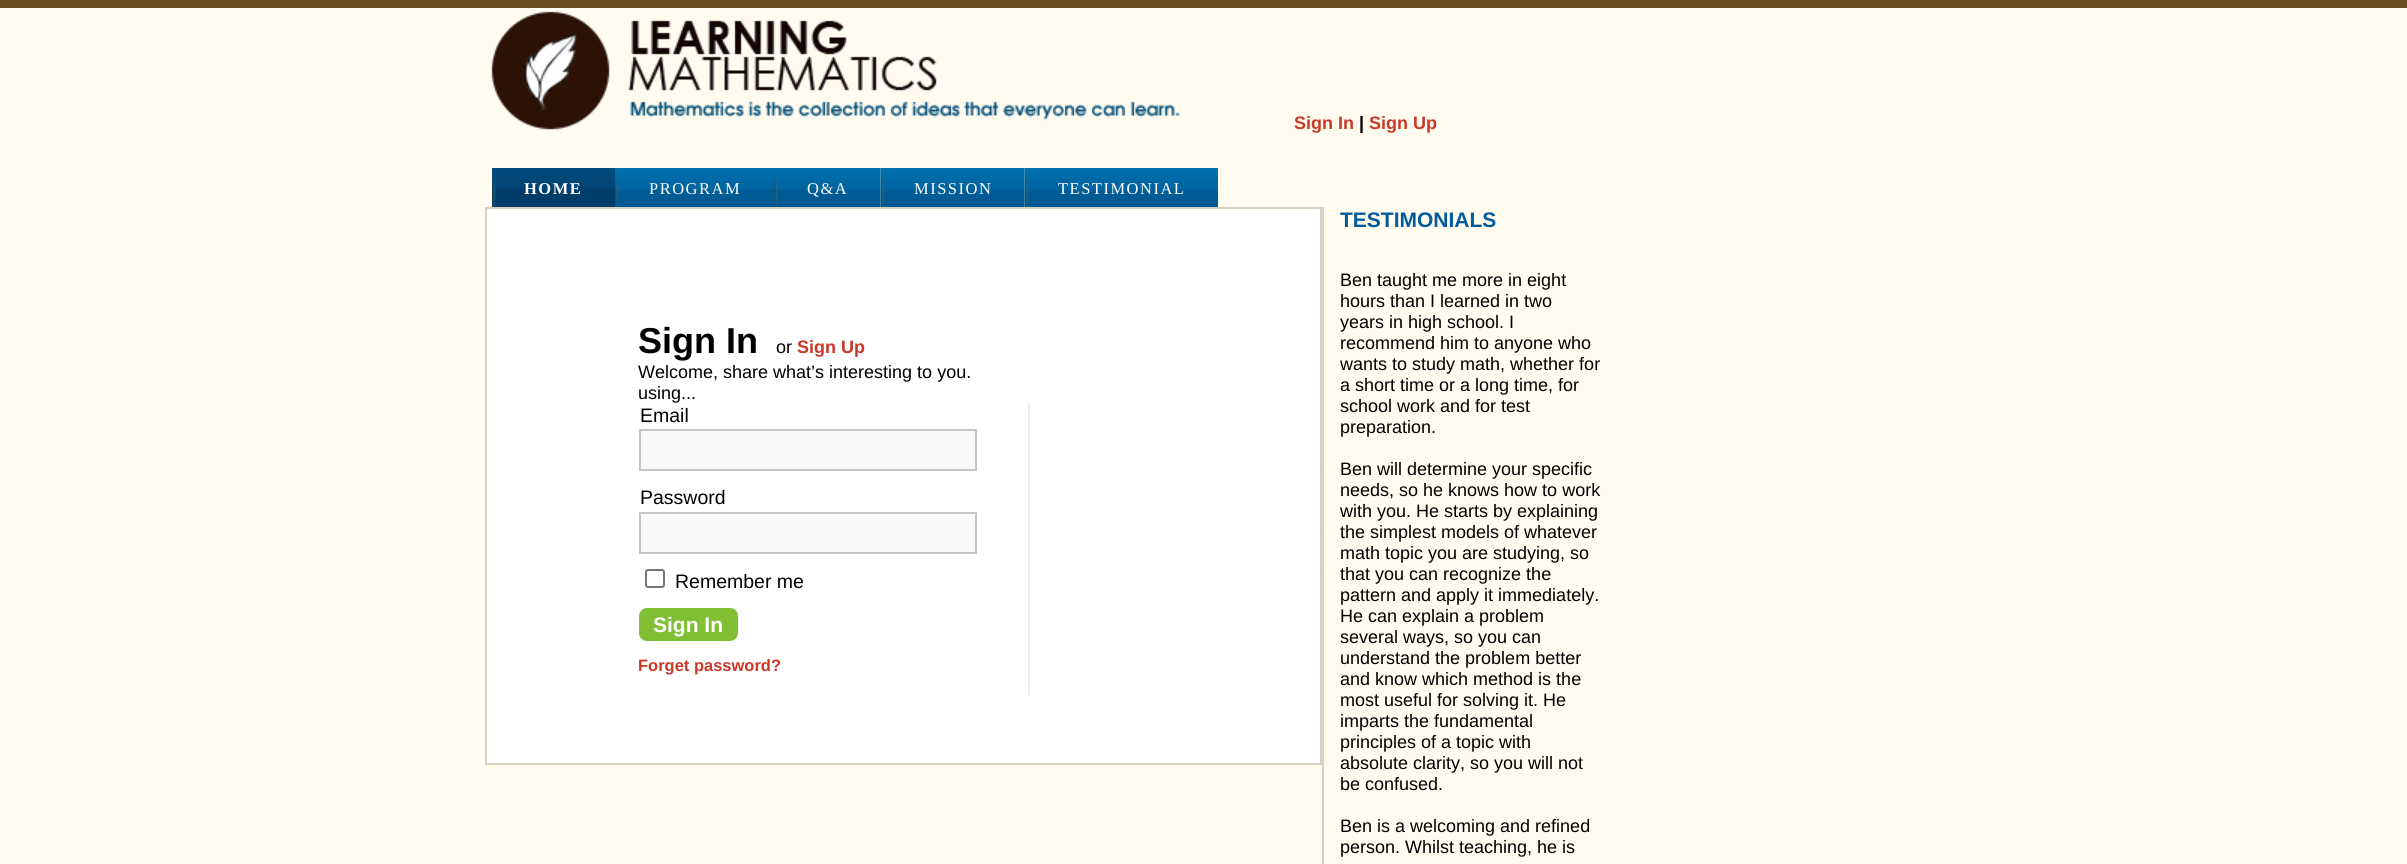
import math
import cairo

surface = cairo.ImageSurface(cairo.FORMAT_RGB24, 2407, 864)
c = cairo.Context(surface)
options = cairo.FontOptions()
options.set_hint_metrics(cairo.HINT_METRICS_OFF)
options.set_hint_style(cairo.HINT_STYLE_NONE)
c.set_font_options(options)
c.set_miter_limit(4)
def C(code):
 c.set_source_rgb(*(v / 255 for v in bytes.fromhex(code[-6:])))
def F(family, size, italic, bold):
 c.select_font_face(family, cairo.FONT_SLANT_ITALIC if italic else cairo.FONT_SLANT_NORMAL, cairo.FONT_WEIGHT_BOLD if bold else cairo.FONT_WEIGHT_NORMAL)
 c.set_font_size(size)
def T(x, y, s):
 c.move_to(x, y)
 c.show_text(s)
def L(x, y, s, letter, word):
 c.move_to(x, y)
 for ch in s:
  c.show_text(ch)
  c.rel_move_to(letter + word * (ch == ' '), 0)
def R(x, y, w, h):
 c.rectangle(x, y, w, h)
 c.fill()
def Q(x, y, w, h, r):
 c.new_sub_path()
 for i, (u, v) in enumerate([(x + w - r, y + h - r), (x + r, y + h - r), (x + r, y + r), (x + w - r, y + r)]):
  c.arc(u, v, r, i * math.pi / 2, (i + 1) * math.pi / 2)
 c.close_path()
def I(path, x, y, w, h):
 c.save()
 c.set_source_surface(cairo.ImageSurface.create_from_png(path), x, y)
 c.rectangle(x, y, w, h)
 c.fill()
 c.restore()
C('fffbee')
c.paint()
C('6a4d1e')
R(0,0,2407,8)
I('1.png',491,11,689,119)
F('Liberation Sans',18,0,1)
C('ca3827')
T(1294,129,'Sign In')
C('000000')
T(1359,129,'|')
C('ca3827')
T(1369,129,'Sign Up')
I('2.png',492,168,123,39)
F('Liberation Serif',16.5,0,1)
C('ffffff')
L(524,194,'HOME',1.5,0)
I('3.png',615,168,159,39)
F('Liberation Serif',16.5,0,0)
L(649,194,'PROGRAM',1.5,0)
I('4.png',774,168,107,39)
L(807,194,'Q&A',1.5,0)
I('5.png',880,168,145,39)
L(914,194,'MISSION',1.5,0)
I('6.png',1024,168,194,39)
L(1058,194,'TESTIMONIAL',1.5,0)
c.rectangle(486,208,835,556)
c.fill_preserve()
C('d7d1c2')
c.stroke()
F('Liberation Sans',36,0,1)
C('000000')
T(638,353,'Sign In')
F('Liberation Sans',18,0,0)
T(776,353,'or')
F('Liberation Sans',18,0,1)
C('ca3827')
T(797,353,'Sign Up')
F('Liberation Sans',18,0,0)
C('000000')
T(638,378,'Welcome, share what’s interesting to you.')
T(638,399,'using...')
C('eeeeee')
R(1028,404,2,291)
F('Liberation Sans',19.5,0,0)
C('000000')
T(640,422,'Email')
C('f9f9f9')
c.rectangle(640,430,336,40)
c.fill_preserve()
C('c5c5c5')
c.stroke()
C('000000')
T(640,504,'Password')
C('f9f9f9')
c.rectangle(640,513,336,40)
c.fill_preserve()
C('c5c5c5')
c.stroke()
Q(646,570,18,17,2)
C('767676')
c.stroke()
C('000000')
T(675,588,'Remember me')
C('80be34')
Q(639,608,99,33,8)
c.fill()
F('Liberation Sans',21,0,1)
C('ffffff')
T(653,632,'Sign In')
F('Liberation Sans',16.5,0,1)
C('ca3827')
T(638,671,'Forget password?')
C('d7d1c2')
R(1322,207,2,657)
F('Liberation Sans',21,0,1)
C('005b9f')
T(1340,227,'TESTIMONIALS')
F('Liberation Sans',18,0,0)
C('000000')
T(1340,286,'Ben taught me more in eight')
T(1340,307,'hours than I learned in two')
T(1340,328,'years in high school. I')
T(1340,349,'recommend him to anyone who')
T(1340,370,'wants to study math, whether for')
T(1340,391,'a short time or a long time, for')
T(1340,412,'school work and for test')
T(1340,433,'preparation.')
T(1340,475,'Ben will determine your specific')
T(1340,496,'needs, so he knows how to work')
T(1340,517,'with you. He starts by explaining')
T(1340,538,'the simplest models of whatever')
T(1340,559,'math topic you are studying, so')
T(1340,580,'that you can recognize the')
T(1340,601,'pattern and apply it immediately.')
T(1340,622,'He can explain a problem')
T(1340,643,'several ways, so you can')
T(1340,664,'understand the problem better')
T(1340,685,'and know which method is the')
T(1340,706,'most useful for solving it. He')
T(1340,727,'imparts the fundamental')
T(1340,748,'principles of a topic with')
T(1340,769,'absolute clarity, so you will not')
T(1340,790,'be confused.')
T(1340,832,'Ben is a welcoming and refined')
T(1340,853,'person. Whilst teaching, he is')
surface.write_to_png('o.png')
